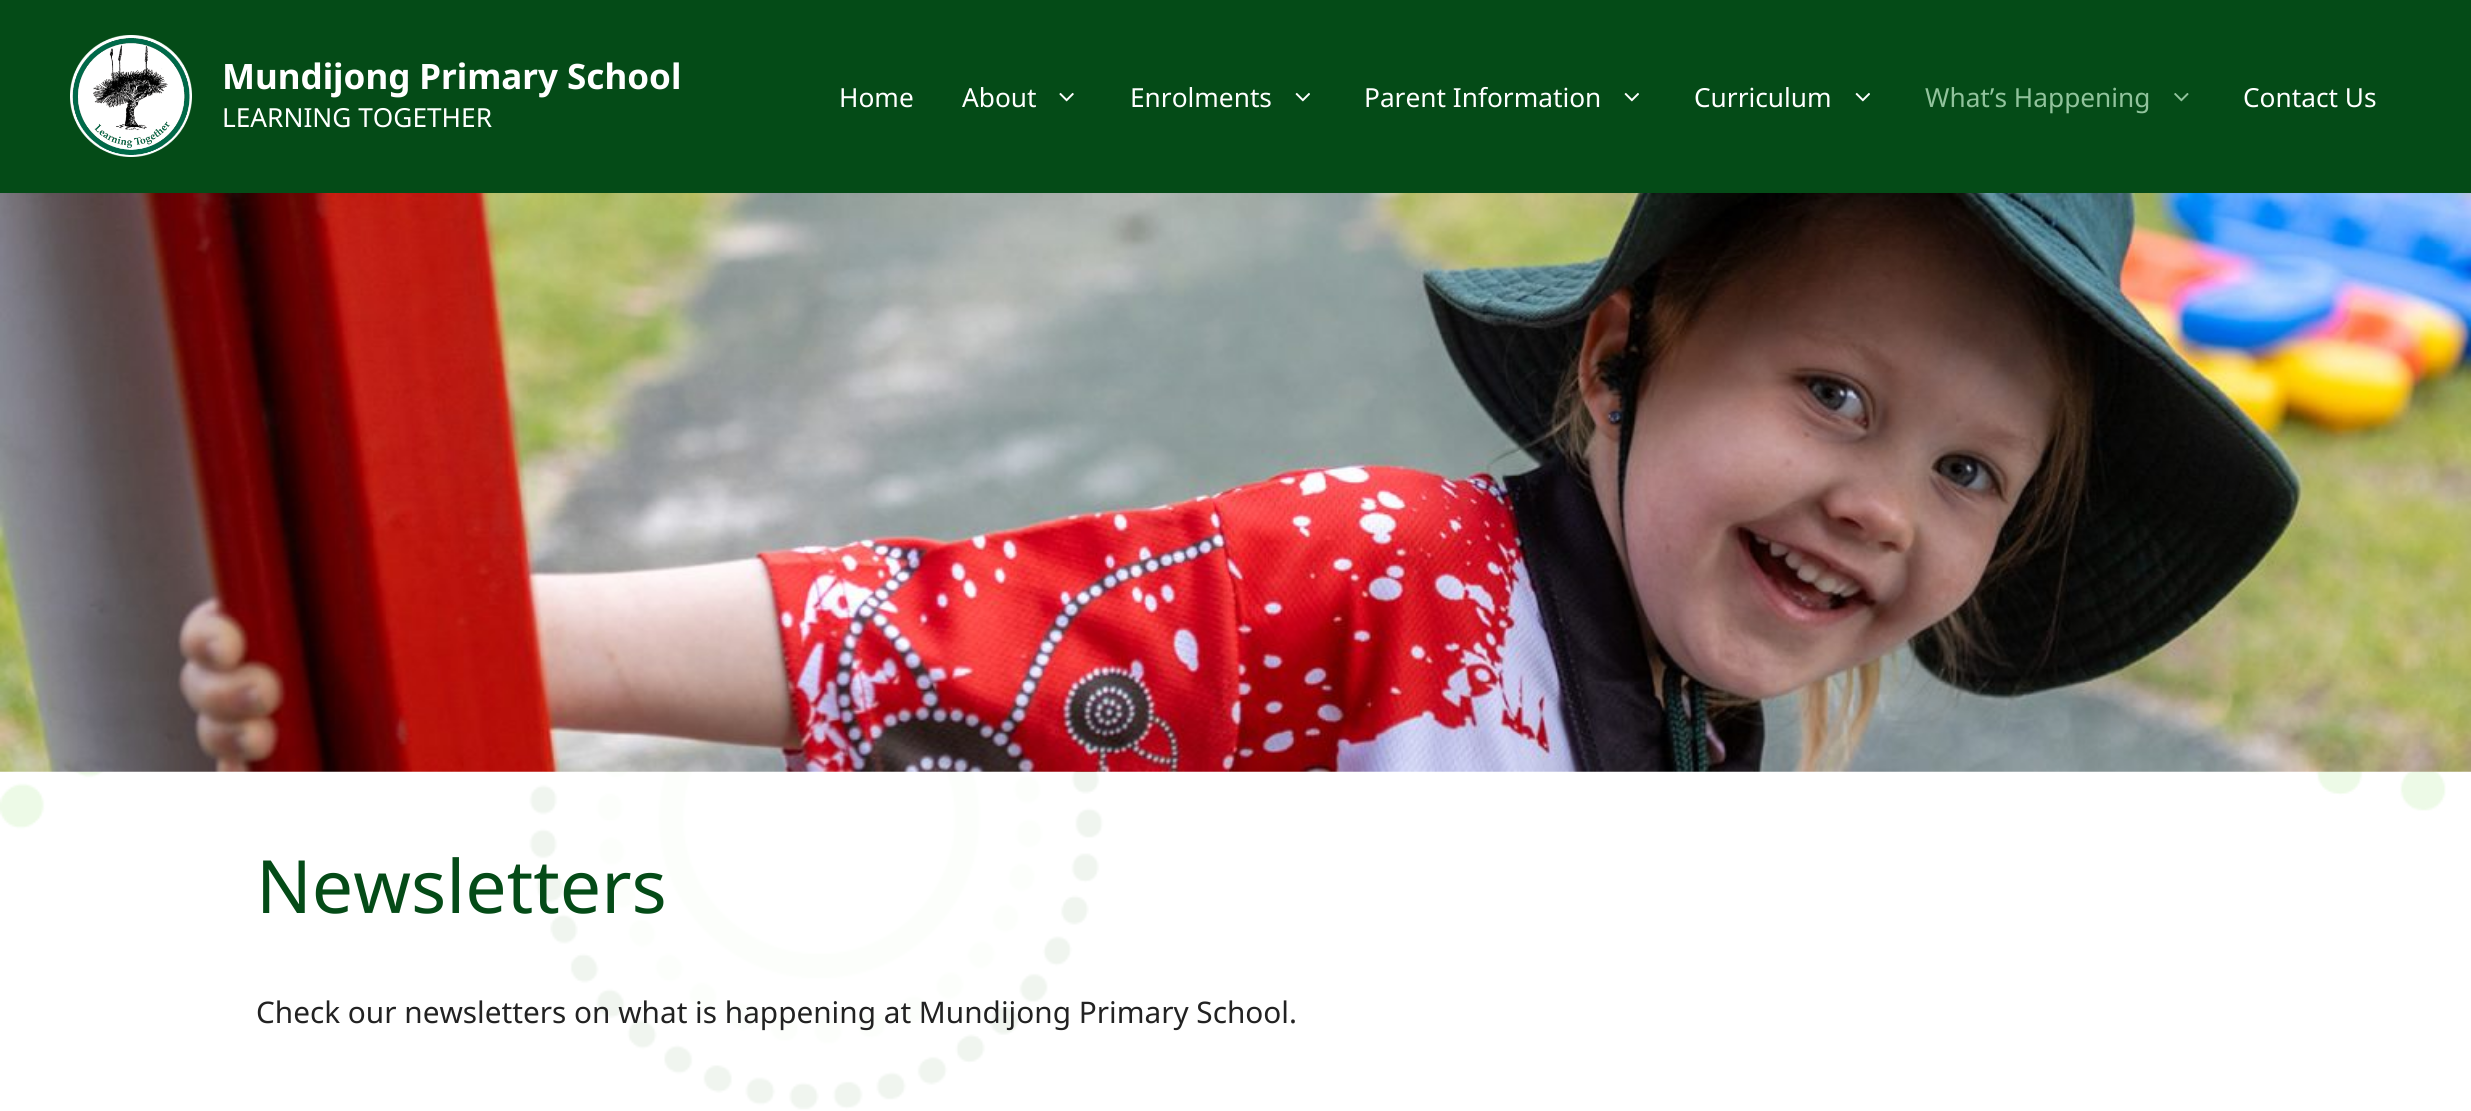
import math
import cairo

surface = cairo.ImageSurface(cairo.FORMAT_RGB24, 2471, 1111)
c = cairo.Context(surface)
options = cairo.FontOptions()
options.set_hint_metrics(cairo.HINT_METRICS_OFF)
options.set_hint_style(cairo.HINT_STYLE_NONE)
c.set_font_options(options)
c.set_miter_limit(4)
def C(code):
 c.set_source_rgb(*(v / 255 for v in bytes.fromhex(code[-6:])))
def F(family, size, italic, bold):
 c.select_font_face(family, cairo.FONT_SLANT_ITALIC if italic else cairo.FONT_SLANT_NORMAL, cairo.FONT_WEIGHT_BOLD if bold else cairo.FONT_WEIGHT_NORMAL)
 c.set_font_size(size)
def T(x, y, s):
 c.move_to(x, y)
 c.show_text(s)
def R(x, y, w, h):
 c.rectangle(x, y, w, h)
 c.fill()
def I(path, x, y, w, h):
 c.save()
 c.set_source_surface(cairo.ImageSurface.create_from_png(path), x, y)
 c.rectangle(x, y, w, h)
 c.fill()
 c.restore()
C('ffffff')
c.paint()
I('1.png',0,771,2446,339)
C('044b17')
R(0,0,2471,193)
I('2.png',70,35,122,122)
F('Noto Sans',35,0,1)
C('ffffff')
T(222,89,'Mundijong Primary School')
F('Noto Sans',26.25,0,0)
T(222,127,'LEARNING TOGETHER')
T(839,107,'Home')
T(962,107,'About')
I('3.png',1059,92,15,10)
T(1130,107,'Enrolments')
I('4.png',1295,92,15,10)
T(1364,107,'Parent Information')
I('4.png',1624,92,15,10)
T(1694,107,'Curriculum')
I('4.png',1855,92,15,10)
C('91c39c')
T(1925,107,'What’s Happening')
I('5.png',2174,93,15,9)
C('ffffff')
T(2243,107,'Contact Us')
I('6.png',0,193,2471,579)
c.set_source_rgba(1,1,1,0.85)
R(529,772,1740,338)
F('Noto Sans',73.5,0,0)
C('044b17')
T(256,913,'Newsletters')
F('Noto Sans',29.75,0,0)
C('222222')
T(256,1023,'Check our newsletters on what is happening at Mundijong Primary School.')
surface.write_to_png('o.png')
